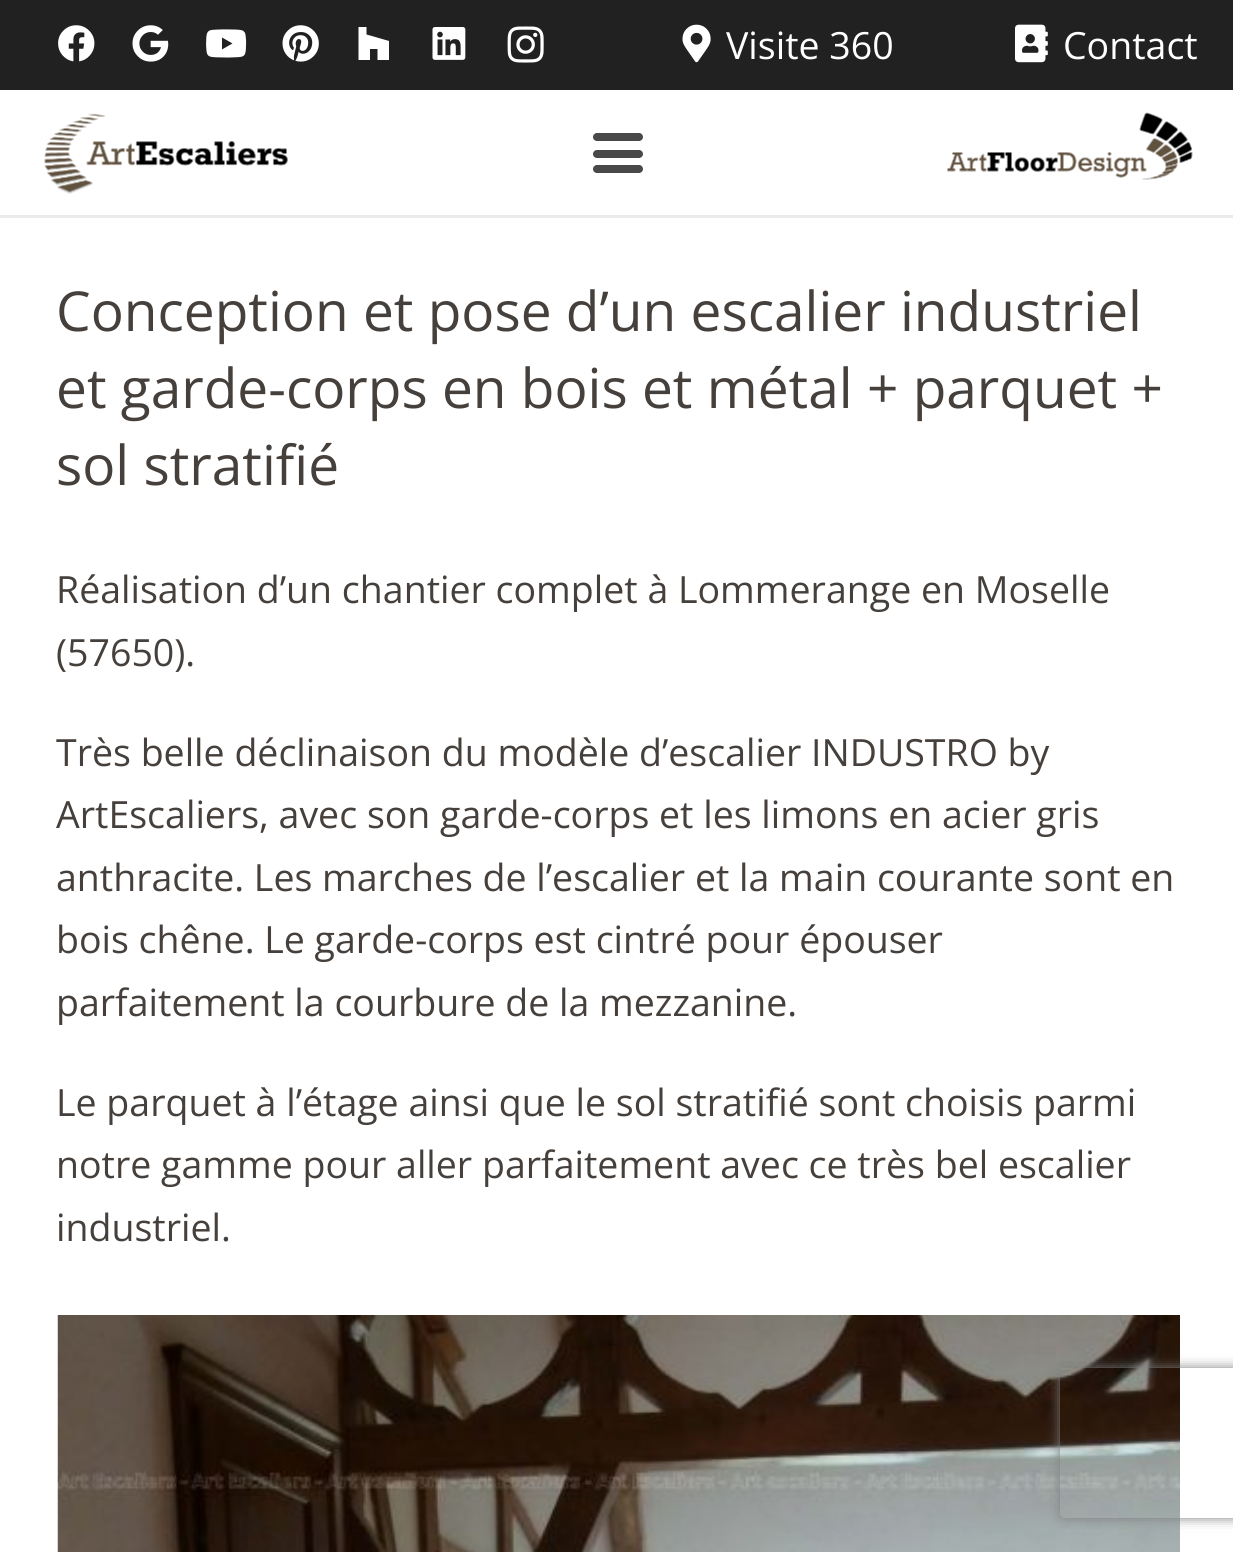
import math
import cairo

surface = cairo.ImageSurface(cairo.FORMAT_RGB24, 1233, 1552)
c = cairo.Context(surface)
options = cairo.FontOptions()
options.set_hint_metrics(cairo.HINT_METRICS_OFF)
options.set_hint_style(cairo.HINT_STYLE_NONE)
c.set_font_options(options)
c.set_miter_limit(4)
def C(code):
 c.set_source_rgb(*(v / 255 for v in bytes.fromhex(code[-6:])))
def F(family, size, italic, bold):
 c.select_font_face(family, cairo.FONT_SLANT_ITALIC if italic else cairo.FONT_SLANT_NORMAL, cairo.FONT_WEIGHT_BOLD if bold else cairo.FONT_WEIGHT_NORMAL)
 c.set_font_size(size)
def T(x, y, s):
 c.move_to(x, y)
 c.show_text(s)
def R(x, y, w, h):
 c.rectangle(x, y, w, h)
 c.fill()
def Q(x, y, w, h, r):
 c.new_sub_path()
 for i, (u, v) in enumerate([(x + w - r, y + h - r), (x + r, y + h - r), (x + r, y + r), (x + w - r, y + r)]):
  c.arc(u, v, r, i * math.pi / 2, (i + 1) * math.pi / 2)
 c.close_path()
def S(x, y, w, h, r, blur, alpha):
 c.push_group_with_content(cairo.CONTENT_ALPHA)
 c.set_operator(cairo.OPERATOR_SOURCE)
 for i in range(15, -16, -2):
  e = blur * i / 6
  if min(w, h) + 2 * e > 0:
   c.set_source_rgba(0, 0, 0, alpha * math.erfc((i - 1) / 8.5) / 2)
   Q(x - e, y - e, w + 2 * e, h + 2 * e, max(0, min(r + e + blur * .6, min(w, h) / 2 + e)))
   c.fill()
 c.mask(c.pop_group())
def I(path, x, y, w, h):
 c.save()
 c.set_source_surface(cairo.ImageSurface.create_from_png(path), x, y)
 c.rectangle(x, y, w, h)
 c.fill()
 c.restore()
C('ffffff')
c.paint()
C('212121')
R(0,0,1233,90)
I('1.png',58,25,37,37)
I('2.png',132,25,37,37)
I('3.png',206,29,41,29)
I('4.png',282,25,37,37)
C('ffffff')
c.new_path()
c.move_to(377.5,49)
c.line_to(370,49)
c.line_to(370,60)
c.line_to(358.5,60)
c.line_to(358.5,27)
c.line_to(366.5,27)
c.line_to(366.5,34.5)
c.line_to(389,41)
c.line_to(389,60)
c.line_to(377.5,60)
c.close_path()
c.fill()
I('5.png',432,27,34,33)
I('6.png',507,26,37,37)
I('7.png',682,24,29,39)
F('Open Sans',37.5,0,0)
T(726,59,'Visite 360')
I('8.png',1015,24,33,39)
T(1063,59,'Contact')
C('ebebeb')
R(0,215,1233,3)
I('9.png',44,113,244,81)
C('494949')
Q(593,150,50,8,4)
c.fill()
Q(593,133,50,8,4)
c.fill()
Q(593,165,50,8,4)
c.fill()
I('10.png',947,112,246,68)
F('Open Sans',55,0,0)
C('46403c')
T(56,331,'Conception et pose d’un escalier industriel')
T(56,408,'et garde-corps en bois et métal + parquet +')
T(56,485,'sol stratifié')
F('Open Sans',37.5,0,0)
T(56,603,'Réalisation d’un chantier complet à Lommerange en Moselle')
T(56,666,'(57650).')
T(56,766,'Très belle déclinaison du modèle d’escalier INDUSTRO by')
T(56,828,'ArtEscaliers, avec son garde-corps et les limons en acier gris')
T(56,891,'anthracite. Les marches de l’escalier et la main courante sont en')
T(56,953,'bois chêne. Le garde-corps est cintré pour épouser')
T(56,1016,'parfaitement la courbure de la mezzanine.')
T(56,1116,'Le parquet à l’étage ainsi que le sol stratifié sont choisis parmi')
T(56,1178,'notre gamme pour aller parfaitement avec ce très bel escalier')
T(56,1241,'industriel.')
I('11.png',57,1315,1123,237)
c.save()
c.set_fill_rule(cairo.FILL_RULE_EVEN_ODD)
c.new_path()
c.move_to(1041,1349)
c.line_to(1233,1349)
c.line_to(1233,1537)
c.line_to(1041,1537)
c.close_path()
c.move_to(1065,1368)
c.line_to(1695,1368)
c.curve_to(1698,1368,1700,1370,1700,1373)
c.line_to(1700,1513)
c.curve_to(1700,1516,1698,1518,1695,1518)
c.line_to(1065,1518)
c.curve_to(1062,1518,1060,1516,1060,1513)
c.line_to(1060,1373)
c.curve_to(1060,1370,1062,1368,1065,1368)
c.close_path()
c.clip()
C('808080')
S(1060,1368,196,150,5,6,1)
c.restore()
surface.write_to_png('o.png')
